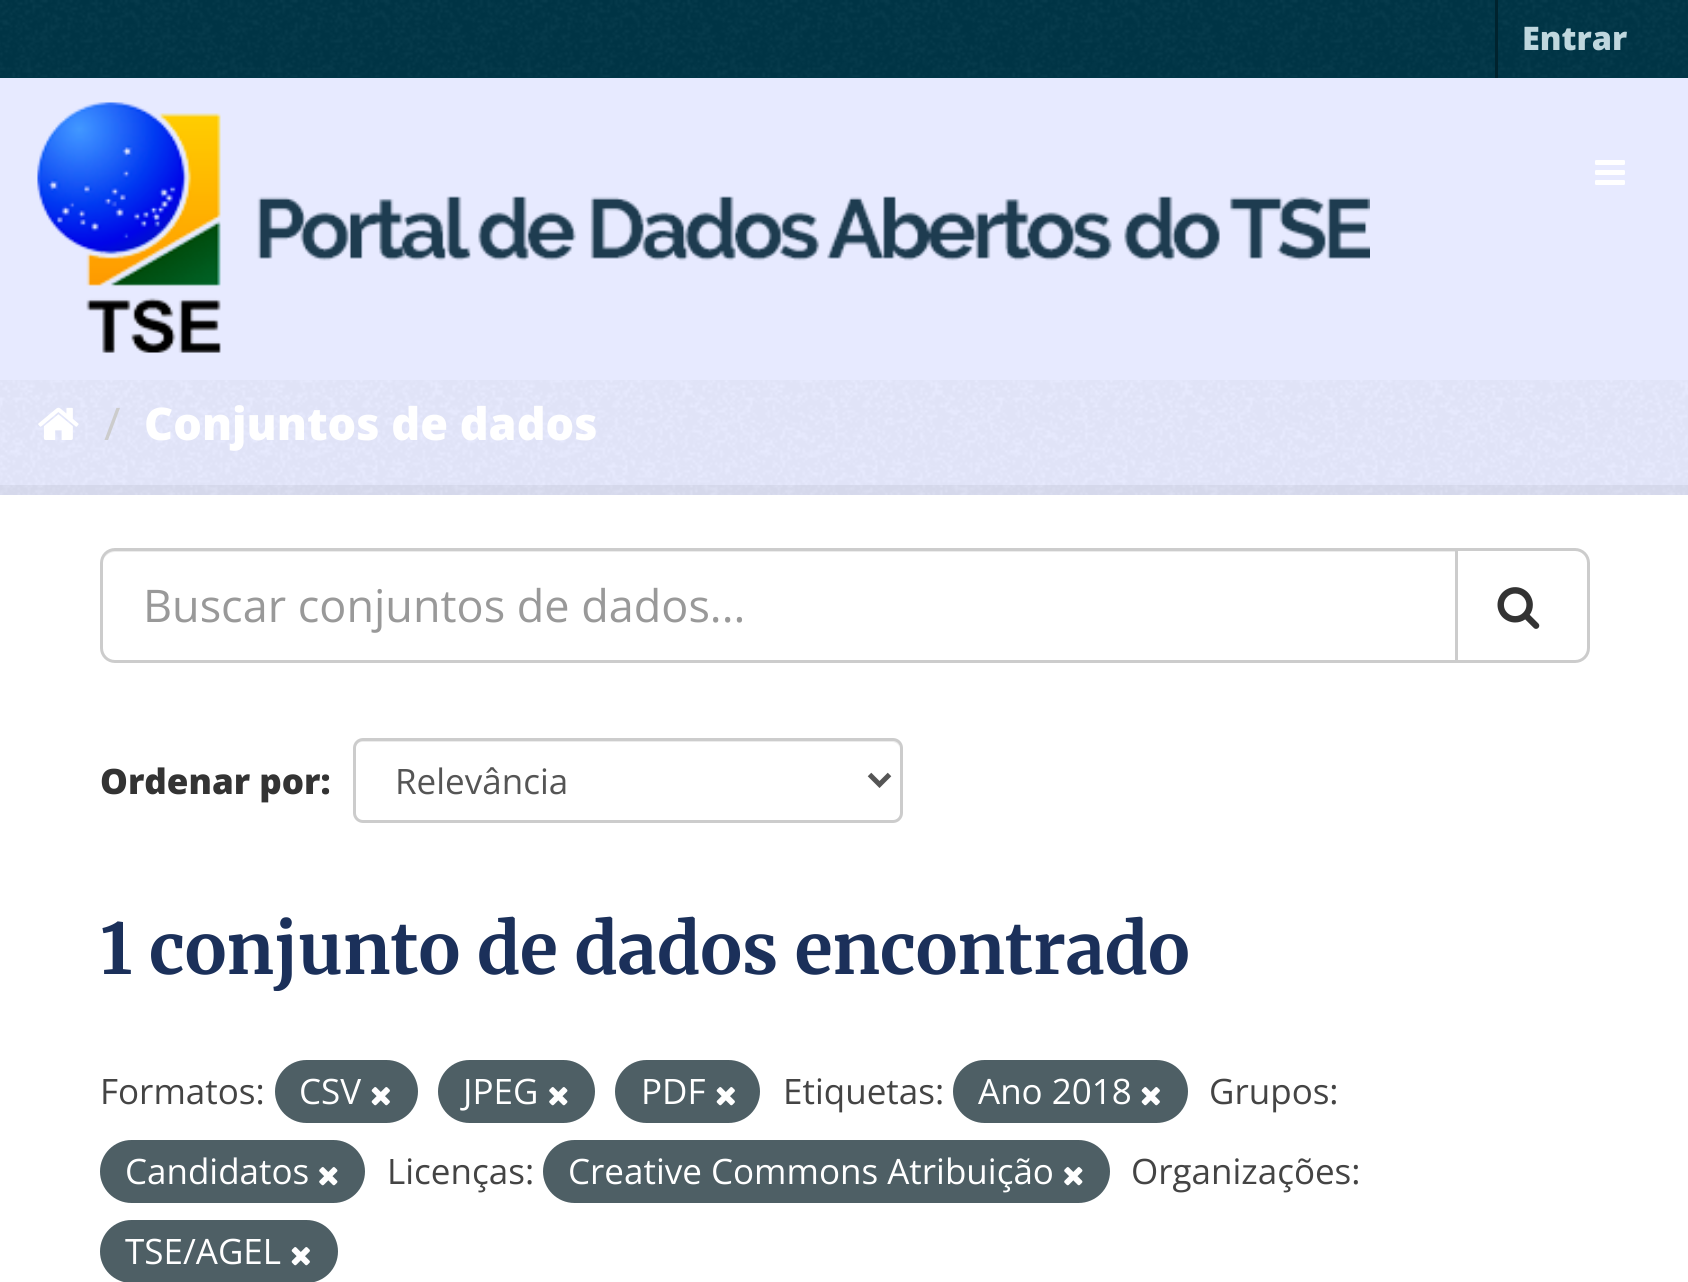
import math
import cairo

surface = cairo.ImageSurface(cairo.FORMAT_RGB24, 1688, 1282)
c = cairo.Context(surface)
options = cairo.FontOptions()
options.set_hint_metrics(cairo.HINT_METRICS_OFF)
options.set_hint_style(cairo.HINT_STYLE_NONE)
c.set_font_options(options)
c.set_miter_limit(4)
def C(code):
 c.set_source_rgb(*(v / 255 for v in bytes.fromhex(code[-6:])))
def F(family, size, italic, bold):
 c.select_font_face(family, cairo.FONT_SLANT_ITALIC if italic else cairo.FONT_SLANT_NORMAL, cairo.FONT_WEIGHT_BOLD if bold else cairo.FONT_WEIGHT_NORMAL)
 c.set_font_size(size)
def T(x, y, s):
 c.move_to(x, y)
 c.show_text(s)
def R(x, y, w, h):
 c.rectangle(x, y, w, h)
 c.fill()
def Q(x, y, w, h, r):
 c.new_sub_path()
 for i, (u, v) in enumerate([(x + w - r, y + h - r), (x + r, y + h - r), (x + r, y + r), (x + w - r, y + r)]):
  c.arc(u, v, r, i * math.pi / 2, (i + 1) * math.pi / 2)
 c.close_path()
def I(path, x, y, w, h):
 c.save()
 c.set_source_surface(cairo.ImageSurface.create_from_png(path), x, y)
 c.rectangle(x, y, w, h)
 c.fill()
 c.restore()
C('e7eaff')
c.paint()
I('1.png',0,380,1688,115)
C('003647')
R(0,0,1688,78)
I('2.png',0,0,1688,77)
C('00232e')
R(1495,0,3,78)
F('Open Sans ExtraBold',32.5,0,0)
C('bfd7de')
T(1522,50,'Entrar')
I('3.png',37,102,1333,251)
I('4.png',1595,160,30,25)
I('5.png',38,407,41,33)
F('Open Sans',45,0,0)
C('cccccc')
T(104,440,'/')
F('Open Sans ExtraBold',45,0,0)
C('ffffff')
T(144,440,'Conjuntos de dados')
c.rectangle(-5,490,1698,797)
c.set_source_rgba(0,0,0,0.05)
c.set_line_width(10)
c.stroke()
C('ffffff')
R(0,495,1688,787)
C('ececec')
c.new_path()
c.move_to(115,552)
c.line_to(1455,552)
c.line_to(1455,550)
c.line_to(116,550)
c.curve_to(110,550,106,554,104,559)
c.curve_to(106,555,110,552,115,552)
c.close_path()
c.fill()
c.new_path()
c.move_to(115,549.5)
c.line_to(1456.5,549.5)
c.line_to(1456.5,661.5)
c.line_to(115,661.5)
c.curve_to(107.5,661.5,101.5,655.5,101.5,648)
c.line_to(101.5,563)
c.curve_to(101.5,555.5,107.5,549.5,115,549.5)
c.close_path()
C('cccccc')
c.set_line_width(3)
c.stroke()
F('Open Sans',45,0,0)
C('999999')
T(143,622,'Buscar conjuntos de dados...')
C('ffffff')
c.new_path()
c.move_to(1456.5,549.5)
c.line_to(1575,549.5)
c.curve_to(1582.5,549.5,1588.5,555.5,1588.5,563)
c.line_to(1588.5,648)
c.curve_to(1588.5,655.5,1582.5,661.5,1575,661.5)
c.line_to(1456.5,661.5)
c.close_path()
c.fill_preserve()
C('cccccc')
c.stroke()
I('6.png',1497,587,43,42)
F('Open Sans ExtraBold',35,0,0)
C('333333')
T(100,794,'Ordenar por:')
C('ececec')
c.new_path()
c.move_to(362,742)
c.line_to(892,742)
c.curve_to(897,742,900,746,900,750)
c.curve_to(900,745,898,740,892,740)
c.line_to(363,740)
c.curve_to(357,740,355,745,355,750)
c.curve_to(355,746,358,742,362,742)
c.close_path()
c.fill()
Q(354.5,739.5,547,82,8.5)
C('cccccc')
c.stroke()
c.new_path()
c.move_to(869.5,774.5)
c.line_to(879.5,784.5)
c.line_to(889.5,774.5)
C('555555')
c.set_line_width(5)
c.stroke()
F('Open Sans',35,0,0)
T(395,794,'Relevância')
F('Merriweather',70,0,1)
C('1b305a')
T(100,974,'1 conjunto de dados encontrado')
F('Open Sans',35,0,0)
C('444444')
T(100,1104,'Formatos:')
C('4e5f65')
Q(275,1060,143,63,31.5)
c.fill()
C('ffffff')
T(299,1104,'CSV')
I('7.png',371,1087,19,19)
C('4e5f65')
Q(438,1060,157,63,31.5)
c.fill()
C('ffffff')
T(463,1104,'JPEG')
I('8.png',549,1087,19,19)
C('4e5f65')
Q(615,1060,145,63,31.5)
c.fill()
C('ffffff')
T(641,1104,'PDF')
I('7.png',716,1087,19,19)
C('444444')
T(783,1104,'Etiquetas:')
C('4e5f65')
Q(953,1060,235,63,31.5)
c.fill()
C('ffffff')
T(978,1104,'Ano 2018')
I('7.png',1141,1087,19,19)
C('444444')
T(1209,1104,'Grupos:')
C('4e5f65')
Q(100,1140,265,63,31.5)
c.fill()
C('ffffff')
T(125,1184,'Candidatos')
I('8.png',319,1167,19,19)
C('444444')
T(387,1184,'Licenças:')
C('4e5f65')
Q(543,1140,567,63,31.5)
c.fill()
C('ffffff')
T(568,1184,'Creative Commons Atribuição')
I('8.png',1064,1167,19,19)
C('444444')
T(1131,1184,'Organizações:')
C('4e5f65')
Q(100,1220,238,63,31.5)
c.fill()
C('ffffff')
T(125,1264,'TSE/AGEL')
I('7.png',291,1247,19,19)
surface.write_to_png('o.png')
